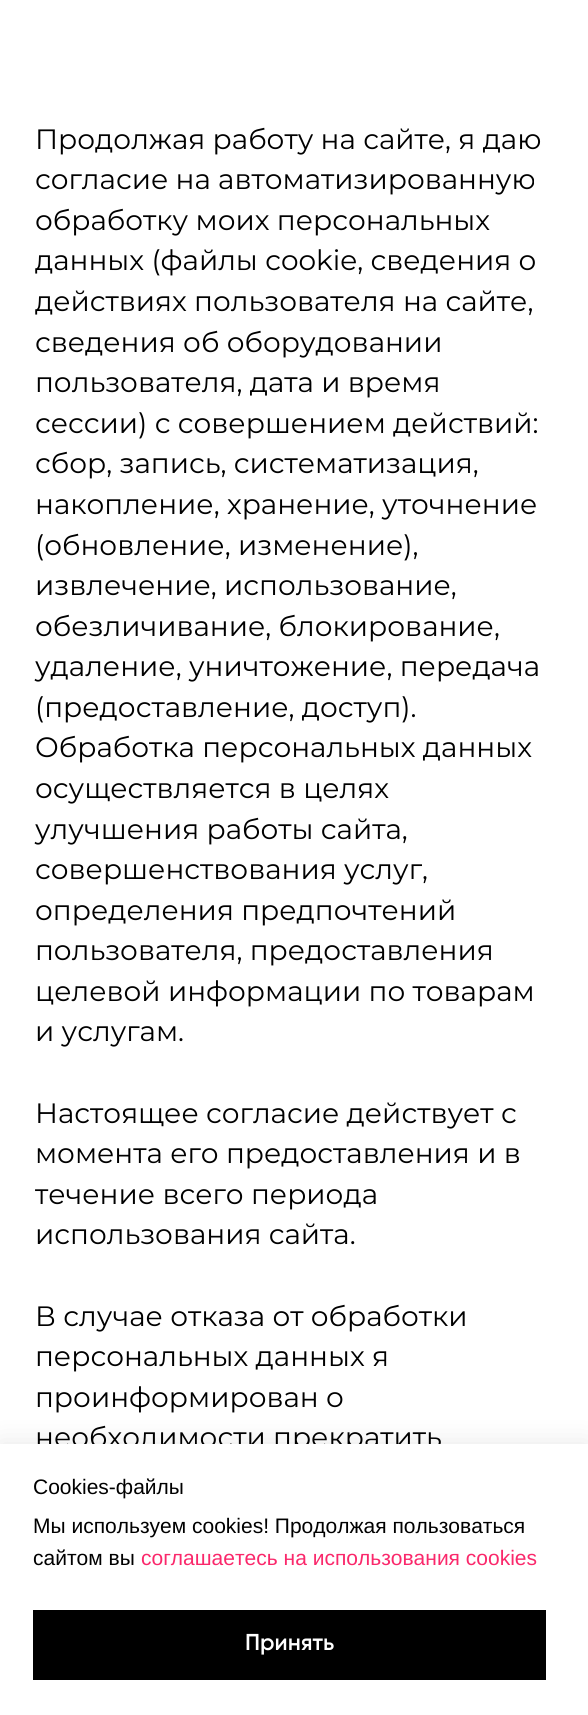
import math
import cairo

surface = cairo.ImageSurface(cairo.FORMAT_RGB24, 588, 1715)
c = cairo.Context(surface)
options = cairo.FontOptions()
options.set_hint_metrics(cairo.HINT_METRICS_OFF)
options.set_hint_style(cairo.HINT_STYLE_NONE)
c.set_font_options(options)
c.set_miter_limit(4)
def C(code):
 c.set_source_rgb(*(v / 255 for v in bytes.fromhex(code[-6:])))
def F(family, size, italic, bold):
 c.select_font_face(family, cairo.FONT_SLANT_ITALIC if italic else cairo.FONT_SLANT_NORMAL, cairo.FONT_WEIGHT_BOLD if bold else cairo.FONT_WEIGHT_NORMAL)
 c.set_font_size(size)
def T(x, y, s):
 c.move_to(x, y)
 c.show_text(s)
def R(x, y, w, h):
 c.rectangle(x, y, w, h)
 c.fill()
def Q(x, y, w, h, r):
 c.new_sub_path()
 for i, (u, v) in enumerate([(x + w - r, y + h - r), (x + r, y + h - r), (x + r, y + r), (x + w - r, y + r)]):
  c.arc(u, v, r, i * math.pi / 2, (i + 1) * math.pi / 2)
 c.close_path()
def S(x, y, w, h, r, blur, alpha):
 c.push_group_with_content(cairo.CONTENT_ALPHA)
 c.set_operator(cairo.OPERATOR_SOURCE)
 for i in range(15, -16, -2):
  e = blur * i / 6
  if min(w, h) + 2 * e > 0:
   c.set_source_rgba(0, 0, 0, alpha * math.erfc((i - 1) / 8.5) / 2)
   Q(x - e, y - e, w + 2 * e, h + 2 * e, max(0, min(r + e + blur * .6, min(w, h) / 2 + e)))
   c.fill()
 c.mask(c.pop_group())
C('ffffff')
c.paint()
F('Montserrat',28,0,0)
C('000000')
T(35,149,'Продолжая работу на сайте, я даю')
T(35,189,'согласие на автоматизированную')
T(35,230,'обработку моих персональных')
T(35,270,'данных (файлы cookie, сведения о')
T(35,311,'действиях пользователя на сайте,')
T(35,352,'сведения об оборудовании')
T(35,392,'пользователя, дата и время')
T(35,433,'сессии) с совершением действий:')
T(35,473,'сбор, запись, систематизация,')
T(35,514,'накопление, хранение, уточнение')
T(35,555,'(обновление, изменение),')
T(35,595,'извлечение, использование,')
T(35,636,'обезличивание, блокирование,')
T(35,676,'удаление, уничтожение, передача')
T(35,717,'(предоставление, доступ).')
T(35,757,'Обработка персональных данных')
T(35,798,'осуществляется в целях')
T(35,839,'улучшения работы сайта,')
T(35,879,'совершенствования услуг,')
T(35,920,'определения предпочтений')
T(35,960,'пользователя, предоставления')
T(35,1001,'целевой информации по товарам')
T(35,1041,'и услугам.')
T(35,1123,'Настоящее согласие действует с')
T(35,1163,'момента его предоставления и в')
T(35,1204,'течение всего периода')
T(35,1244,'использования сайта.')
T(35,1326,'В случае отказа от обработки')
T(35,1366,'персональных данных я')
T(35,1407,'проинформирован о')
T(35,1447,'необходимости прекратить')
C('000000')
S(0,1444,588,271,0,13,.1)
C('ffffff')
R(0,1444,588,271)
F('Liberation Sans',21,0,0)
C('000000')
T(33,1494,'Cookies-файлы')
T(33,1533,'Мы используем cookies! Продолжая пользоваться')
T(33,1565,'сайтом вы')
C('fa286b')
T(141,1565,'соглашаетесь на использования cookies')
C('000000')
R(33,1610,513,70)
F('Gilroy SemiBold',23,0,0)
C('ffffff')
T(245,1650,'Принять')
surface.write_to_png('o.png')
